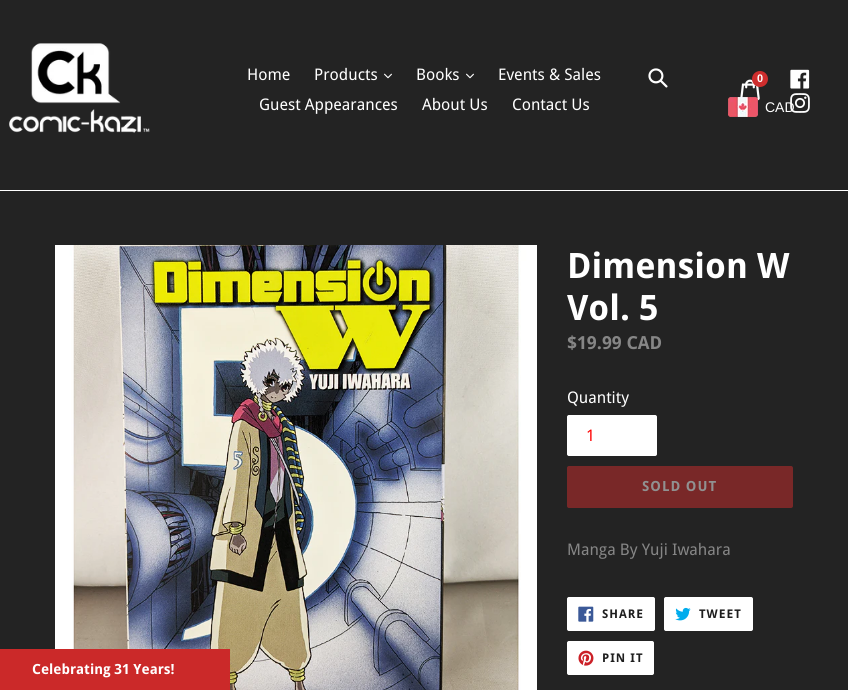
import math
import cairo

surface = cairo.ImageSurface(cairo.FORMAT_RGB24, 848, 690)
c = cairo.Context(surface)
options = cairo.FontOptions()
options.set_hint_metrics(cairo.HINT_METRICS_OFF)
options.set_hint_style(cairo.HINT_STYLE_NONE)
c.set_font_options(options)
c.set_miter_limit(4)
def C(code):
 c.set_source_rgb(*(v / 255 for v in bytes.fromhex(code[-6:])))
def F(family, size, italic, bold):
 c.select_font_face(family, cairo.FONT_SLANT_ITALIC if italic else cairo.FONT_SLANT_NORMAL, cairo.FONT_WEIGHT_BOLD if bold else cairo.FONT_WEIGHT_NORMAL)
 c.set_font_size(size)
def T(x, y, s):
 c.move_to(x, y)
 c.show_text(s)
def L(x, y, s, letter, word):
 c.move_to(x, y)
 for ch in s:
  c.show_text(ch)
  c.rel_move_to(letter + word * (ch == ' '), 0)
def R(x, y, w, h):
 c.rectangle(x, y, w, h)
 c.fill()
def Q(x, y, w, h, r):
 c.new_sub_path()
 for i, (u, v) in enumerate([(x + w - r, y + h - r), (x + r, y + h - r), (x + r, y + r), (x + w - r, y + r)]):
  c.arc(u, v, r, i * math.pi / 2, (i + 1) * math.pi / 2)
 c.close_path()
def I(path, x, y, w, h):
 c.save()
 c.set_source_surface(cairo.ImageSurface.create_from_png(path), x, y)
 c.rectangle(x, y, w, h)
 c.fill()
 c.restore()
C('232323')
c.paint()
C('ffffff')
R(0,190,848,1)
I('1.png',9,43,141,90)
F('Droid Sans',16,0,0)
T(247,80,'Home')
T(314,80,'Products')
I('2.png',384,73,8,6)
T(416,80,'Books')
I('2.png',466,73,8,6)
T(498,80,'Events & Sales')
T(259,110,'Guest Appearances')
T(422,110,'About Us')
T(512,110,'Contact Us')
I('3.png',648,68,20,20)
I('4.png',740,79,20,22)
C('ce2d2d')
c.arc(760,79,8,0,2 * math.pi)
c.fill()
F('Liberation Sans',11,0,1)
C('ffffff')
T(757,82,'0')
I('5.png',790,69,20,20)
F('Liberation Sans',14,0,0)
T(765,112,'CAD')
I('6.png',790,93,20,20)
I('7.png',728,97,30,20)
I('8.png',55,245,482,445)
C('cb2929')
R(0,649,230,41)
F('Droid Sans',14,0,1)
C('ffffff')
T(32,674,'Celebrating 31 Years!')
F('Droid Sans',35,0,1)
T(567,278,'Dimension W')
T(567,320,'Vol. 5')
F('Droid Sans',18,0,1)
C('868686')
T(567,349,'$19.99 CAD')
F('Droid Sans',16,0,0)
C('ffffff')
T(567,403,'Quantity')
Q(567.5,415.5,89,40,1.5)
c.fill_preserve()
c.set_line_width(1)
c.stroke()
C('ff0000')
T(586,441,'1')
C('792828')
Q(567,466,226,42,2)
c.fill()
F('Droid Sans',14,0,1)
C('919191')
L(642,491,'SOLD OUT',1,0)
F('Droid Sans',16,0,0)
C('868686')
T(567,555,'Manga By Yuji Iwahara')
C('ffffff')
Q(567.5,597.5,87,33,1.5)
c.fill_preserve()
c.stroke()
I('9.png',578,606,16,16)
F('Droid Sans',12,0,1)
C('1e1e1e')
L(602,618,'SHARE',1,0)
C('ffffff')
Q(664.5,597.5,88,33,1.5)
c.fill_preserve()
c.stroke()
I('10.png',675,607,16,14)
C('1e1e1e')
L(699,618,'TWEET',1,0)
C('ffffff')
Q(567.5,641.5,86,33,1.5)
c.fill_preserve()
c.stroke()
I('11.png',578,650,16,16)
C('1e1e1e')
L(602,662,'PIN IT',1,0)
surface.write_to_png('o.png')
